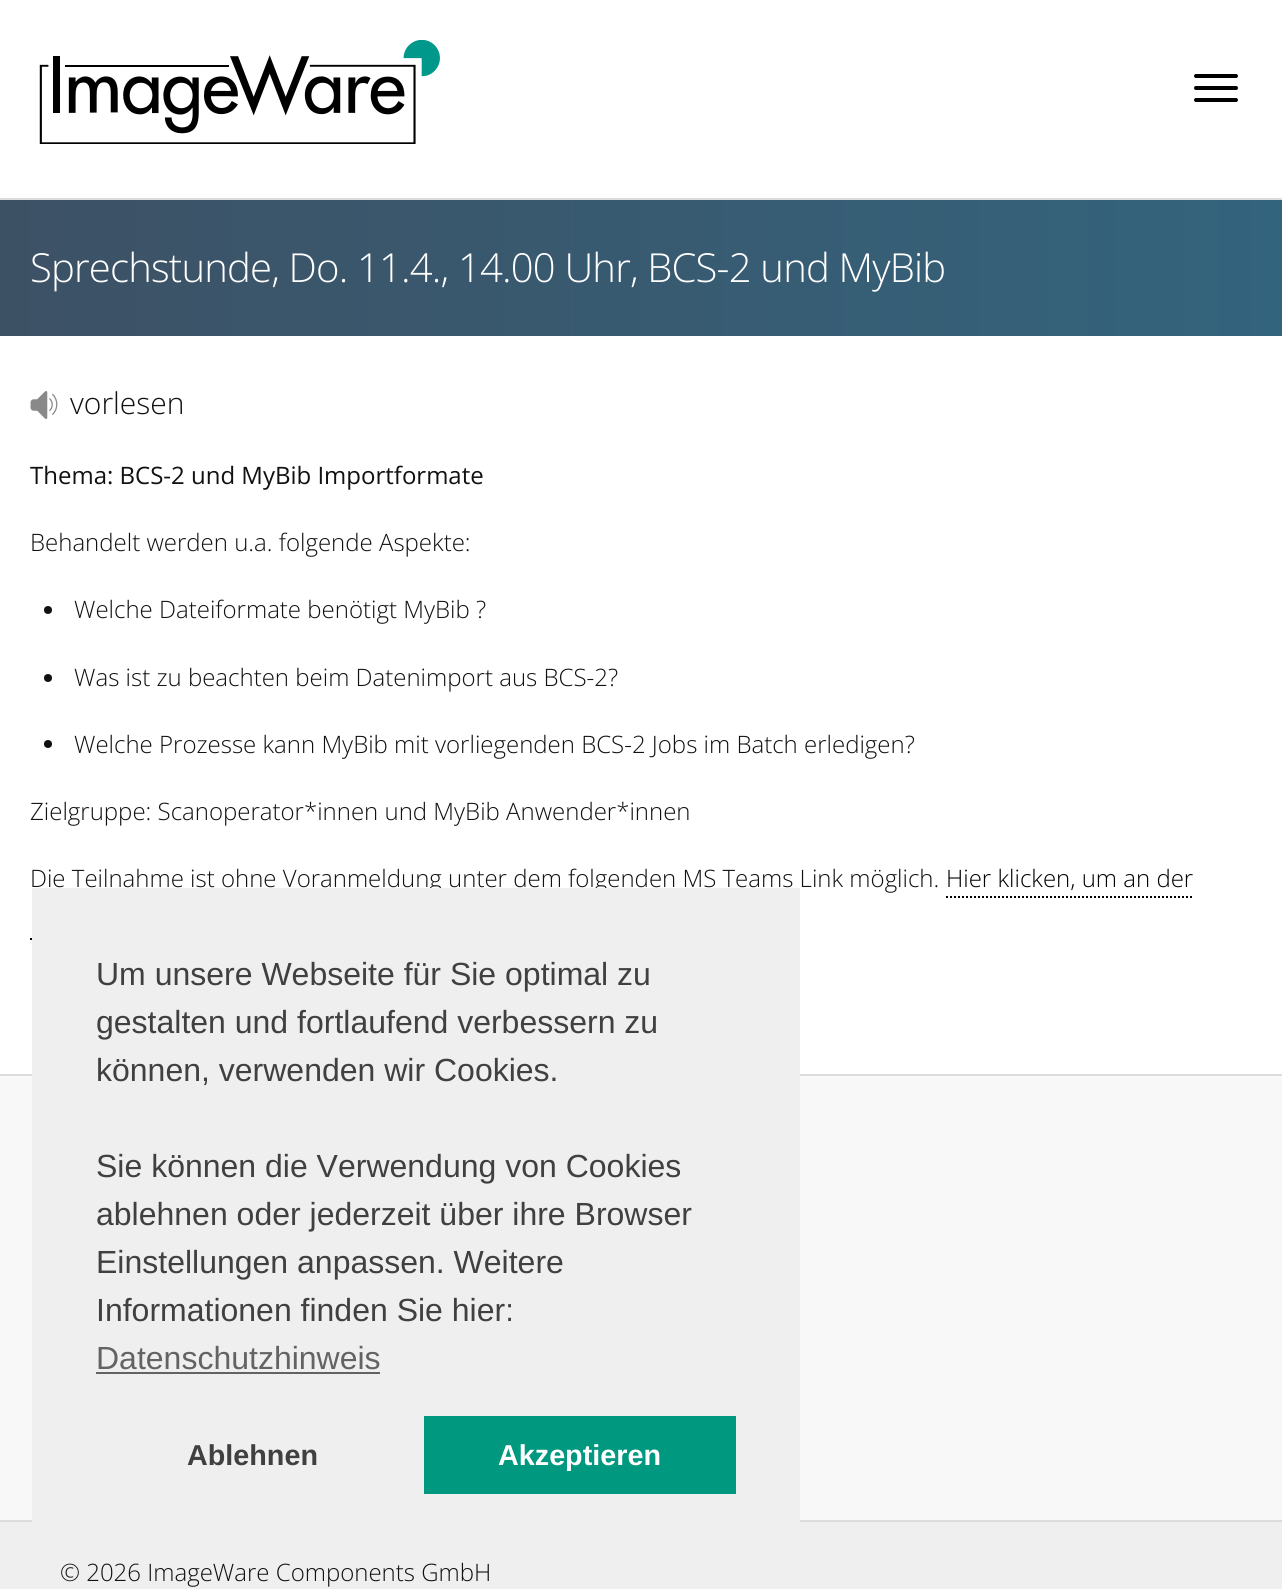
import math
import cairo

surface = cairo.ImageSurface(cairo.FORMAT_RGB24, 1282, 1589)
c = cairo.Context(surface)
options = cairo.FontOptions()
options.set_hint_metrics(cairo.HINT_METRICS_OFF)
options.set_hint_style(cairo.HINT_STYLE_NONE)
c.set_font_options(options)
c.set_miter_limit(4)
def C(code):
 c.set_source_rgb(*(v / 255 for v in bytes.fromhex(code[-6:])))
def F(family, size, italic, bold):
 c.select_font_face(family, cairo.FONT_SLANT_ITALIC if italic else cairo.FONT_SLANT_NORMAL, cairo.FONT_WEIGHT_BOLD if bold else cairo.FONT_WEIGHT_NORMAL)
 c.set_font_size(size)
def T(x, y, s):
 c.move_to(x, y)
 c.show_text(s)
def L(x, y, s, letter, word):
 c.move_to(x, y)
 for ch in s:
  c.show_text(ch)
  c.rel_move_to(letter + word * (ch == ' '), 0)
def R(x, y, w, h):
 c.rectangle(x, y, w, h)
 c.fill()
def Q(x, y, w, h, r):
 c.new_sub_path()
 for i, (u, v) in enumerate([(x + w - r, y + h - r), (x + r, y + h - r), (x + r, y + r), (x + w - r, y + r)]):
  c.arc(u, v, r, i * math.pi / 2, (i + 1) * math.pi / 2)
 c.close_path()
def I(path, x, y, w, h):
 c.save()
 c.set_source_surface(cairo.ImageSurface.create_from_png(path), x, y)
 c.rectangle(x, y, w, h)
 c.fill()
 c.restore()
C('ffffff')
c.paint()
gradient = cairo.LinearGradient(0,880,1282,880)
gradient.add_color_stop_rgba(0,0.239,0.318,0.396,1)
gradient.add_color_stop_rgba(1,0.2,0.392,0.49,1)
c.set_source(gradient)
R(0,200,1282,136)
C('dcdcdc')
R(0,198,1282,2)
I('1.png',39,40,401,104)
C('000000')
Q(1194,74,44,4,2)
c.fill()
Q(1194,86,44,4,2)
c.fill()
Q(1194,98,44,4,2)
c.fill()
F('Open Sans Light',40,0,0)
C('ffffff')
L(30,282,'Sprechstunde, Do. 11.4., 14.00 Uhr, BCS-2 und MyBib',-.8,0)
I('2.png',30,391,28,28)
F('Open Sans Light',30,0,0)
C('111111')
T(70,414,'vorlesen')
F('Open Sans',24,0,0)
T(30,484,'Thema: BCS-2 und MyBib Importformate')
F('Open Sans Light',24,0,0)
T(30,551,'Behandelt werden u.a. folgende Aspekte:')
c.new_path()
c.arc(48,610,4,0,2 * math.pi)
c.fill()
T(74,618,'Welche Dateiformate benötigt MyBib ?')
c.new_path()
c.arc(48,678,4,0,2 * math.pi)
c.fill()
T(74,686,'Was ist zu beachten beim Datenimport aus BCS-2?')
c.new_path()
c.arc(48,744,4,0,2 * math.pi)
c.fill()
T(74,753,'Welche Prozesse kann MyBib mit vorliegenden BCS-2 Jobs im Batch erledigen?')
T(30,820,'Zielgruppe: Scanoperator*innen und MyBib Anwender*innen')
T(30,887,'Die Teilnahme ist ohne Voranmeldung unter dem folgenden MS Teams Link möglich.')
C('000000')
T(946,887,'Hier klicken, um an der')
c.new_path()
c.move_to(946,897)
c.line_to(1192,897)
c.set_dash([2,2])
c.stroke()
c.new_path()
c.move_to(30,939)
c.line_to(326,939)
c.stroke()
C('f8f8f8')
R(0,1076,1282,444)
C('dcdcdc')
R(0,1074,1282,2)
C('efefef')
R(0,1522,1282,67)
C('dcdcdc')
R(0,1520,1282,2)
C('111111')
T(60,1581,'© 2026 ImageWare Components GmbH')
C('efefef')
R(32,888,768,634)
F('Liberation Sans',32,0,0)
C('404040')
T(96,985,'Um unsere Webseite für Sie optimal zu')
T(96,1033,'gestalten und fortlaufend verbessern zu')
T(96,1081,'können, verwenden wir Cookies.')
T(96,1177,'Sie können die Verwendung von Cookies')
T(96,1225,'ablehnen oder jederzeit über ihre Browser')
T(96,1273,'Einstellungen anpassen. Weitere')
T(96,1321,'Informationen finden Sie hier:')
C('636363')
T(96,1369,'Datenschutzhinweis')
R(96,1372,284,2)
F('Liberation Sans',28.75,0,1)
C('404040')
T(187,1465,'Ablehnen')
C('00997f')
R(424,1416,312,78)
C('ffffff')
T(498,1465,'Akzeptieren')
surface.write_to_png('o.png')
